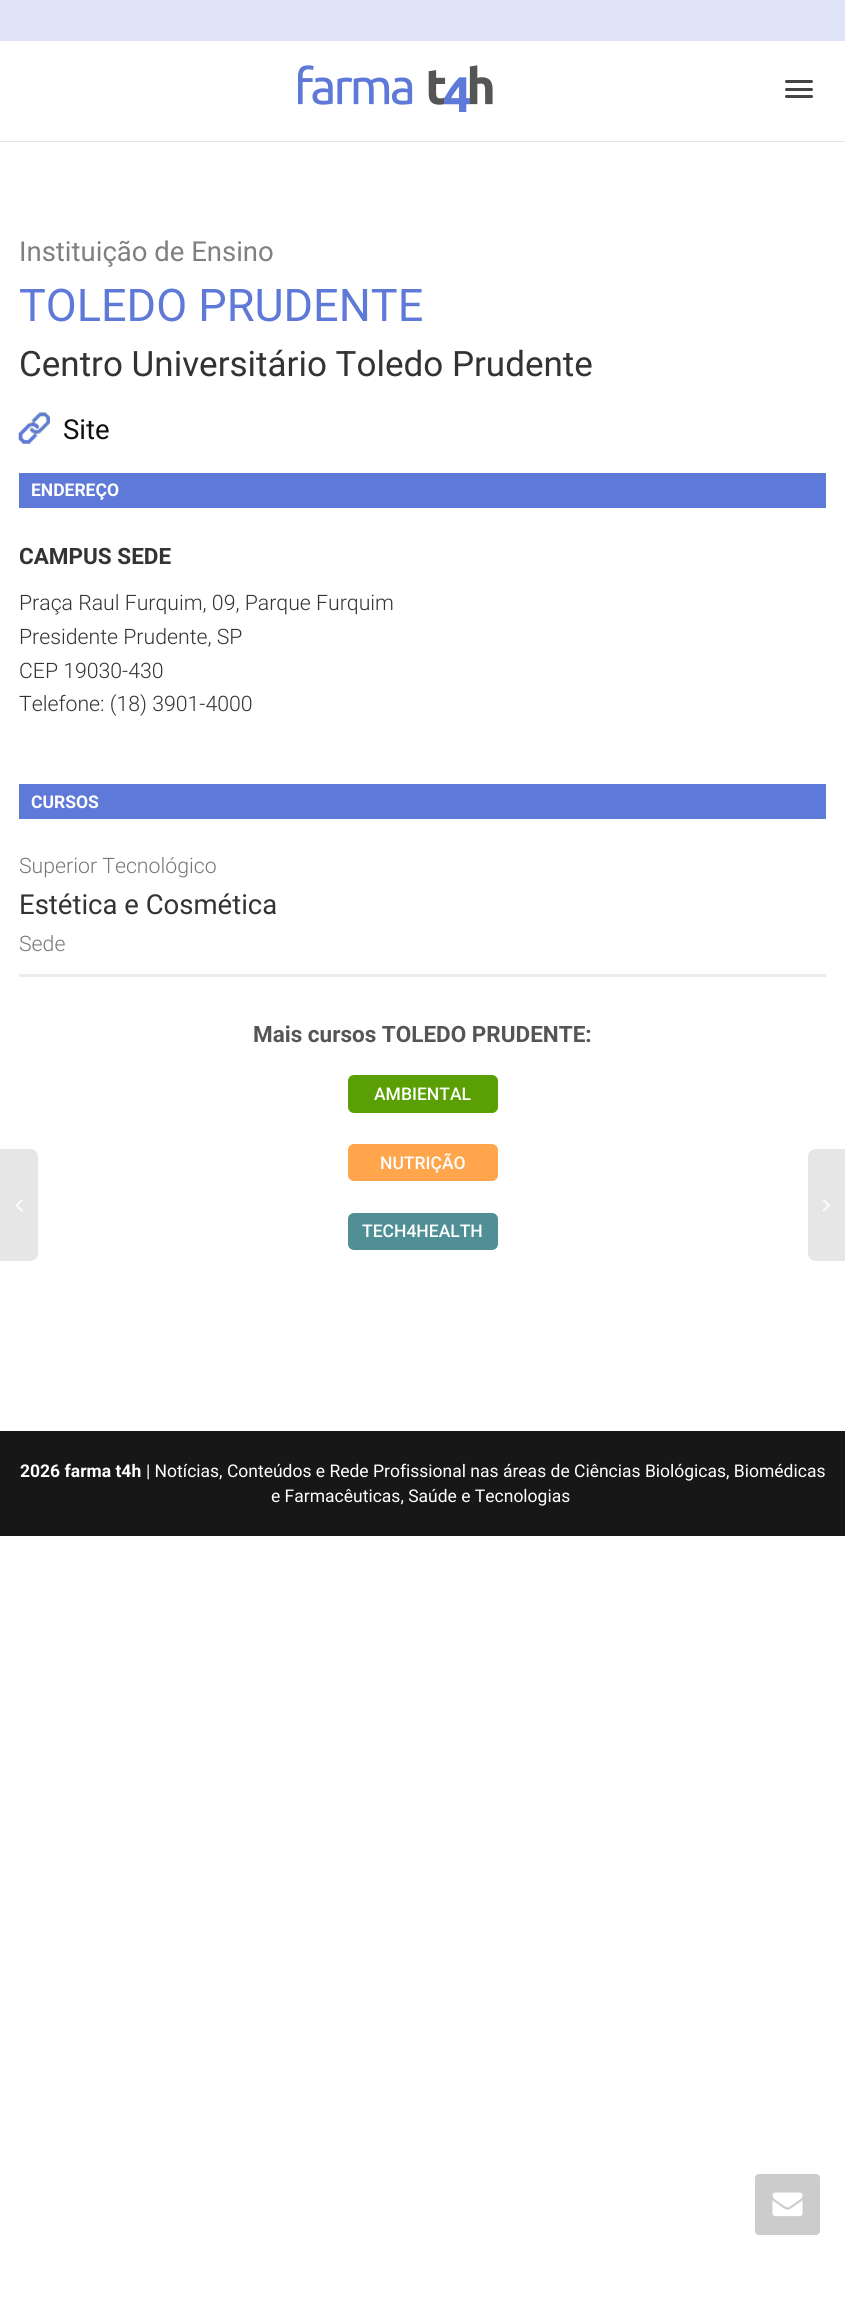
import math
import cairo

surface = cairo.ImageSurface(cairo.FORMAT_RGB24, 845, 2297)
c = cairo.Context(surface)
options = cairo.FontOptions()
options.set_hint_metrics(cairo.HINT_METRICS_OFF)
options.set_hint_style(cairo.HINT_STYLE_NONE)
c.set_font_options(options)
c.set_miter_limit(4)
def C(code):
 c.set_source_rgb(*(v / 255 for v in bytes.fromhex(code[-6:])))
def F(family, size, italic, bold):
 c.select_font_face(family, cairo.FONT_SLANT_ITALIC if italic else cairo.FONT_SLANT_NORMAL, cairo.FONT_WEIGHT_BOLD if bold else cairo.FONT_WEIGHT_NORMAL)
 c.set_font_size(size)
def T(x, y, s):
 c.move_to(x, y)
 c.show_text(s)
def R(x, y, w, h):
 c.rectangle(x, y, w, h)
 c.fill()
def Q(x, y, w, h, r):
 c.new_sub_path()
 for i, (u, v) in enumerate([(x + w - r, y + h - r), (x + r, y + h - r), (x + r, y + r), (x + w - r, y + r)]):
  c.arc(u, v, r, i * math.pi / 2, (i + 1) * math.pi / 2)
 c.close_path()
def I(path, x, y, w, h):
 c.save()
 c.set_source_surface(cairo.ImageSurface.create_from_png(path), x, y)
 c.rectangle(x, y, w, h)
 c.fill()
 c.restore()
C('ffffff')
c.paint()
C('dfe4f7')
R(0,0,845,41)
C('e5e5e5')
R(0,141,845,1)
I('1.png',298,65,195,47)
C('444444')
Q(785,80,28,3,1.5)
c.fill()
Q(785,88,28,3,1.5)
c.fill()
Q(785,95,28,3,1.5)
c.fill()
F('Roboto',27.5,0,0)
C('808080')
T(19,261,'Instituição de Ensino')
F('Roboto',45,0,0)
C('5e79d8')
T(19,321,'TOLEDO PRUDENTE')
F('Roboto',35,0,0)
C('333333')
T(19,376,'Centro Universitário Toledo Prudente')
I('2.png',18,412,32,32)
F('Roboto',27.5,0,0)
C('111111')
T(63,439,'Site')
C('5e79d8')
R(19,473,807,35)
F('Roboto',17.5,0,1)
C('ffffff')
T(31,496,'ENDEREÇO')
F('Roboto',22.5,0,1)
C('333333')
T(19,564,'CAMPUS SEDE')
F('Roboto Light',21.25,0,0)
T(19,610,'Praça Raul Furquim, 09, Parque Furquim')
T(19,644,'Presidente Prudente, SP')
T(19,678,'CEP 19030-430')
T(19,711,'Telefone: (18) 3901-4000')
C('5e79d8')
R(19,784,807,35)
F('Roboto',17.5,0,1)
C('ffffff')
T(31,808,'CURSOS')
F('Roboto Light',21.25,0,0)
C('777777')
T(19,873,'Superior Tecnológico')
F('Roboto',27.5,0,0)
C('333333')
T(19,914,'Estética e Cosmética')
F('Roboto Light',21.25,0,0)
C('777777')
T(19,951,'Sede')
C('ebebeb')
R(19,974,807,3)
F('Roboto',22.5,0,1)
C('555555')
T(253,1042,'Mais cursos TOLEDO PRUDENTE:')
C('5a9f04')
Q(348,1075,150,38,6)
c.fill()
F('Roboto Medium',17.5,0,0)
C('ffffff')
T(374,1100,'AMBIENTAL')
C('ffa64d')
Q(348,1144,150,37,6)
c.fill()
C('ffffff')
T(380,1169,'NUTRIÇÃO')
C('518f96')
Q(348,1213,150,37,6)
c.fill()
C('ffffff')
T(362,1237,'TECH4HEALTH')
C('e6e6e6')
c.new_path()
c.move_to(-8,1149)
c.line_to(30,1149)
c.curve_to(34.5,1149,38,1152.5,38,1157)
c.line_to(38,1253)
c.curve_to(38,1257.5,34.5,1261,30,1261)
c.line_to(-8,1261)
c.close_path()
c.fill()
I('3.png',15,1199,8,13)
c.new_path()
c.move_to(816,1149)
c.line_to(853,1149)
c.line_to(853,1261)
c.line_to(816,1261)
c.curve_to(811.5,1261,808,1257.5,808,1253)
c.line_to(808,1157)
c.curve_to(808,1152.5,811.5,1149,816,1149)
c.close_path()
c.fill()
I('4.png',822,1199,8,13)
C('171717')
R(0,1431,845,105)
F('Roboto',17.5,0,1)
C('ffffff')
T(20,1477,'2026 farma t4h')
F('Roboto',17.5,0,0)
T(146,1477,'| Notícias, Conteúdos e Rede Profissional nas áreas de Ciências Biológicas, Biomédicas')
T(271,1502,'e Farmacêuticas, Saúde e Tecnologias')
C('cccccc')
Q(755,2174,65,61,4)
c.fill()
I('5.png',772,2192,31,25)
surface.write_to_png('o.png')
